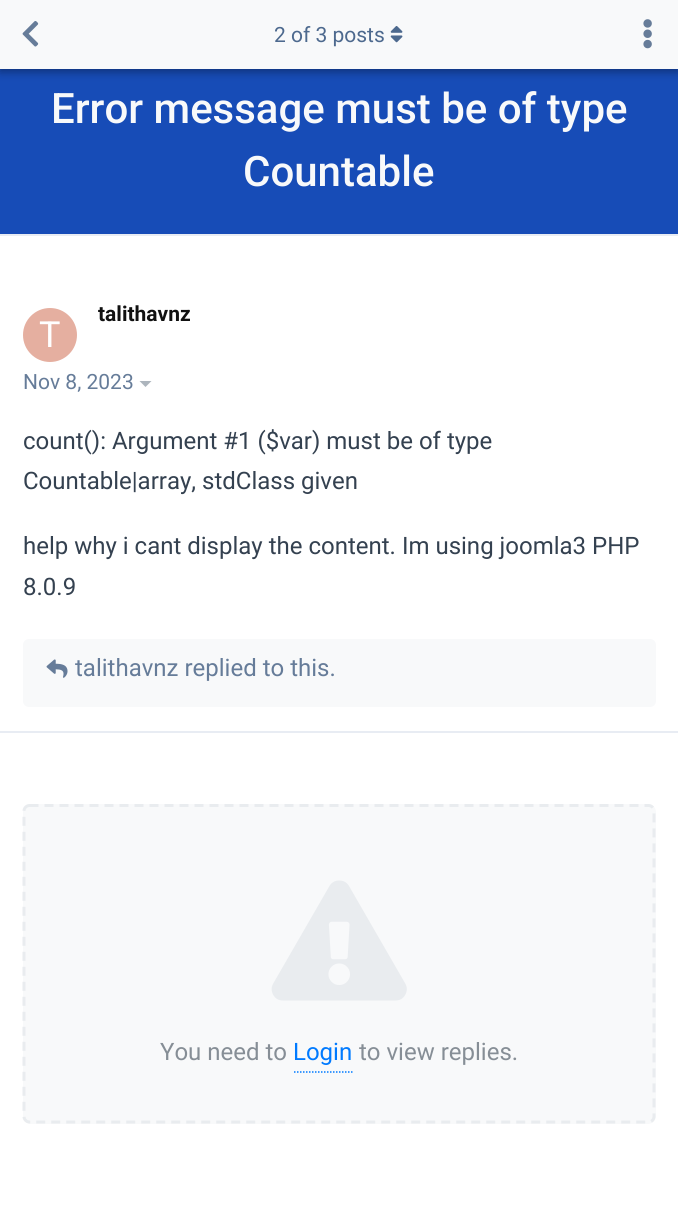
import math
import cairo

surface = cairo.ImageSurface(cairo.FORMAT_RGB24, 678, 1214)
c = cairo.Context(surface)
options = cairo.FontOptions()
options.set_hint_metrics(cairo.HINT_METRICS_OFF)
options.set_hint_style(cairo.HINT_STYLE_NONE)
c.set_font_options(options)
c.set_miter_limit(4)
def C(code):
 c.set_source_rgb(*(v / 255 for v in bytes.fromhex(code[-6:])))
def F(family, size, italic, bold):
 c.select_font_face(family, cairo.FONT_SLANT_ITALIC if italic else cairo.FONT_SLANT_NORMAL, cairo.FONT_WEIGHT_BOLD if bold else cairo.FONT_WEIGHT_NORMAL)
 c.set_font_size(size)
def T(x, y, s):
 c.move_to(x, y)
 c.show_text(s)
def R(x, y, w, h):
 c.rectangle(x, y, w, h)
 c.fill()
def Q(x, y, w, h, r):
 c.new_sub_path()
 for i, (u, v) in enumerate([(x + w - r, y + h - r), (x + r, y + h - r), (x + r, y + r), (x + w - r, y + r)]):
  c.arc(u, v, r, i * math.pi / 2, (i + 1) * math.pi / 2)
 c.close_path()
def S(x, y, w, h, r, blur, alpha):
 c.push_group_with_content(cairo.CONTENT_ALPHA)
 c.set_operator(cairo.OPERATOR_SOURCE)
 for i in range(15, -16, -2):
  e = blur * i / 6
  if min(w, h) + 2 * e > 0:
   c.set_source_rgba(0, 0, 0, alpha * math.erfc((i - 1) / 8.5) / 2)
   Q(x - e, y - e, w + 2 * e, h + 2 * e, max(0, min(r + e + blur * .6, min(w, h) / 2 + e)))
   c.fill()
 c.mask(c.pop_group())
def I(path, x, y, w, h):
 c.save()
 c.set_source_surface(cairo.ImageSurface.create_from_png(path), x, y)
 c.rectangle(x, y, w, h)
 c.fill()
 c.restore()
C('ffffff')
c.paint()
C('174cb7')
R(0,69,678,165)
C('000000')
S(0,3,678,69,0,4.5,.35)
C('f8f9fa')
R(0,0,678,69)
I('1.png',22,21,17,26)
C('e8ecf3')
R(0,234,678,2)
F('Roboto',21,0,0)
C('4d698e')
T(274,42,'2 of 3 posts')
I('2.png',390,26,13,17)
I('3.png',643,19,9,30)
C('e8ecf3')
R(0,731,678,2)
F('Roboto',21,0,1)
C('111111')
T(98,321,'talithavnz')
C('e5afa0')
c.new_path()
c.arc(50,335,27,0,2 * math.pi)
c.fill()
F('Roboto',36,0,0)
C('ffffff')
T(39,347,'T')
F('Roboto',21,0,0)
C('667c99')
T(23,389,'Nov 8, 2023')
C('adb5bd')
c.new_path()
c.move_to(139.5,381)
c.line_to(151.5,381)
c.line_to(145.5,387)
c.close_path()
c.fill()
F('Roboto',24,0,0)
C('344150')
T(23,449,'count(): Argument #1 ($var) must be of type')
T(23,489,'Countable|array, stdClass given')
T(23,554,'help why i cant display the content. Im using joomla3 PHP')
T(23,595,'8.0.9')
C('f8f9fa')
Q(23,639,633,68,6)
c.fill()
I('4.png',46,659,22,19)
C('667c99')
T(75,676,'talithavnz replied to this.')
C('f8f9fa')
Q(23,804,633,320,8)
c.fill()
c.new_path()
c.move_to(29.5,805.5)
c.line_to(648.5,805.5)
c.curve_to(651.5,805.5,654,808,654,811)
c.line_to(654,1116.5)
c.curve_to(654,1119.5,651.5,1122,648.5,1122)
c.line_to(29.5,1122)
c.curve_to(26.5,1122,24,1119.5,24,1116.5)
c.line_to(24,811)
c.curve_to(24,808,26.5,805.5,29.5,805.5)
c.close_path()
C('e9ecef')
c.set_line_width(3)
c.set_dash([9,6])
c.stroke()
I('5.png',271,880,136,121)
C('868e96')
T(160,1060,'You need to')
c.new_path()
c.move_to(294,1072)
c.line_to(352.5,1072)
C('007aff')
c.set_line_width(1.5)
c.set_dash([1.5,1.5])
c.stroke()
T(293,1060,'Login')
C('868e96')
T(359,1060,'to view replies.')
F('Roboto Medium',42,0,0)
C('f8f9fa')
T(51,123,'Error message must be of type')
T(243,186,'Countable')
surface.write_to_png('o.png')
